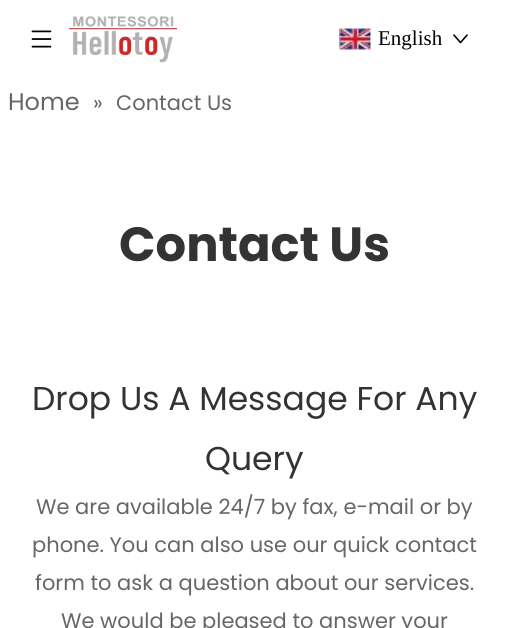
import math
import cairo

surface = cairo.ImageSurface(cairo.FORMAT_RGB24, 508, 628)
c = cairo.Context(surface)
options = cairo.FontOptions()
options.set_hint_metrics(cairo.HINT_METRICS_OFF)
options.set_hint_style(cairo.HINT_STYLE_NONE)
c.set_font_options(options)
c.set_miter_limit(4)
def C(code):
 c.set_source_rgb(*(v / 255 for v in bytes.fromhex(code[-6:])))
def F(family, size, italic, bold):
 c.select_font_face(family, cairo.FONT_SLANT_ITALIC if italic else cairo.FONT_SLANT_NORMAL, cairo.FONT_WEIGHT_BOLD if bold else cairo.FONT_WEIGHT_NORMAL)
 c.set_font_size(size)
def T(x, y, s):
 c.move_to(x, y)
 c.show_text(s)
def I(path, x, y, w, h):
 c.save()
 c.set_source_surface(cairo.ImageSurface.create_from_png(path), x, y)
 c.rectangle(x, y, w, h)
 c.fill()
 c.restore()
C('ffffff')
c.paint()
I('1.png',31,30,21,18)
I('2.png',69,16,108,47)
I('3.png',339,28,32,22)
F('Liberation Serif',21,0,0)
C('000000')
T(378,45,'English')
I('4.png',453,34,15,10)
F('Poppins',24,0,0)
C('666666')
T(8,110,'Home')
F('Poppins',21,0,0)
T(93,110,'»')
T(116,110,'Contact Us')
F('Poppins',48,0,1)
C('333333')
T(119,261,'Contact Us')
F('Poppins',33,0,0)
T(32,410,'Drop Us A Message For Any')
T(205,470,'Query')
F('Poppins',21,0,0)
C('666666')
T(36,514,'We are available 24/7 by fax, e-mail or by')
T(32,552,'phone. You can also use our quick contact')
T(35,590,'form to ask a question about our services.')
T(61,628,'We would be pleased to answer your')
surface.write_to_png('o.png')
